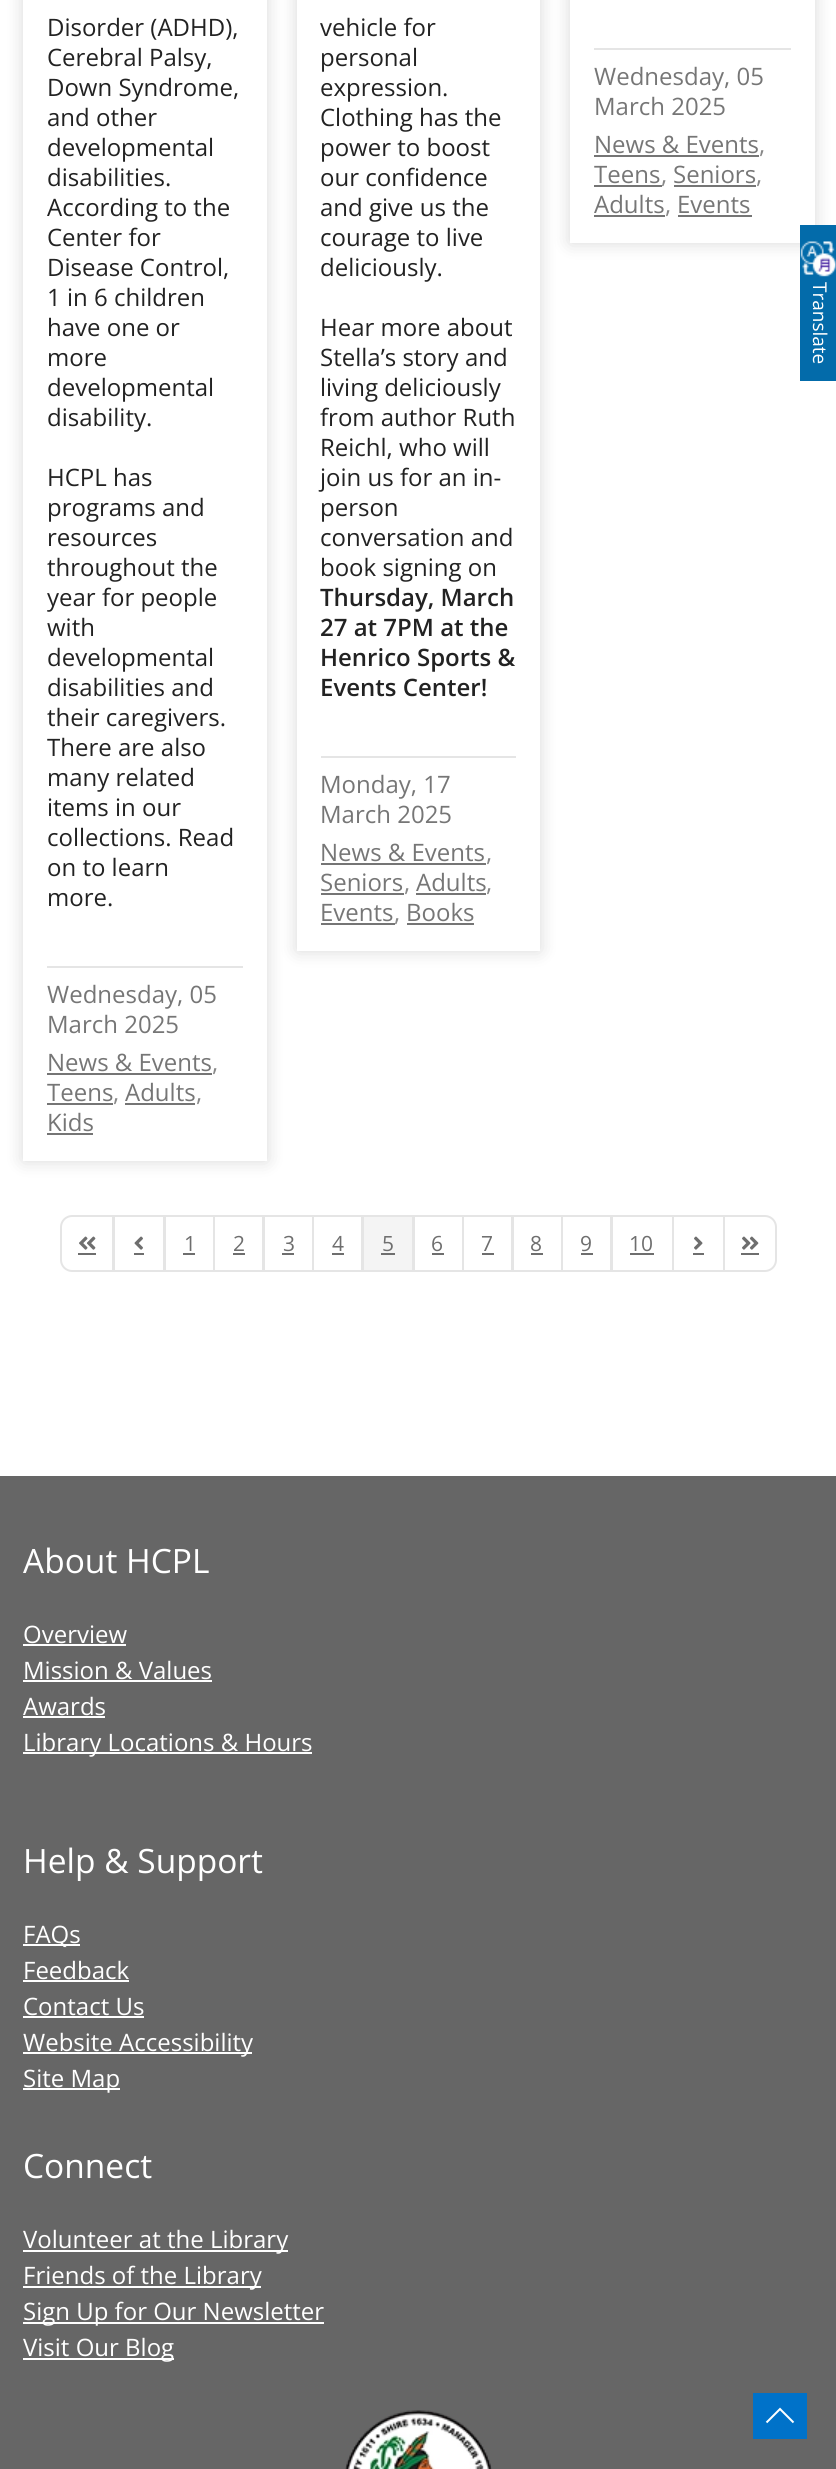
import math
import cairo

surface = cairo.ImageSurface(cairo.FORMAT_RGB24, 836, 2469)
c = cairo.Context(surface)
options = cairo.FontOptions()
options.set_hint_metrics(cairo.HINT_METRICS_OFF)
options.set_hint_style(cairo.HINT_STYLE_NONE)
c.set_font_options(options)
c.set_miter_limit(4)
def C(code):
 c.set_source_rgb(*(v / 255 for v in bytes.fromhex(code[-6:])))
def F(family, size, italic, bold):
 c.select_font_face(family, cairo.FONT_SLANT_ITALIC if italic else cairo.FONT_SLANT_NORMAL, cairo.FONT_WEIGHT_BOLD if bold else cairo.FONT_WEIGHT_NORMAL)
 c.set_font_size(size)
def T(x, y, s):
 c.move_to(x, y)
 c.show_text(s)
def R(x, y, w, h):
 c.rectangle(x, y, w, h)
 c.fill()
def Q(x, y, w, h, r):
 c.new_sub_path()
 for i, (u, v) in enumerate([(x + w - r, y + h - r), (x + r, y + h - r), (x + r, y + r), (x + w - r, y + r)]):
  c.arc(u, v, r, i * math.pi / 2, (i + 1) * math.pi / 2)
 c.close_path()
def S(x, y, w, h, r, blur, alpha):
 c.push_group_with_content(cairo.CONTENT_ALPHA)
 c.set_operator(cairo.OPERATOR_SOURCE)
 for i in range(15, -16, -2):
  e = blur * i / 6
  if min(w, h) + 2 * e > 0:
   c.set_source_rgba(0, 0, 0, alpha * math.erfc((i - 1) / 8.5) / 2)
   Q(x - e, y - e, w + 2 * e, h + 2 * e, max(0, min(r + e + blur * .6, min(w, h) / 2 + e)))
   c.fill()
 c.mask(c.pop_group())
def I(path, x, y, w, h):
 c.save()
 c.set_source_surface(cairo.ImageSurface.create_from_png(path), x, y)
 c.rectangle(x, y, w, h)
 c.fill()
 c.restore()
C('ffffff')
c.paint()
c.save()
c.set_fill_rule(cairo.FILL_RULE_EVEN_ODD)
c.new_path()
c.move_to(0,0)
c.line_to(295,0)
c.line_to(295,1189)
c.line_to(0,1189)
c.close_path()
c.move_to(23,-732)
c.line_to(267,-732)
c.line_to(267,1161)
c.line_to(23,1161)
c.close_path()
c.clip()
C('000000')
S(23,-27,244,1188,0,9,.15)
c.restore()
F('Open Sans',24,0,0)
C('222222')
T(47,36,'Disorder (ADHD),')
T(47,66,'Cerebral Palsy,')
T(47,96,'Down Syndrome,')
T(47,126,'and other')
T(47,156,'developmental')
T(47,186,'disabilities.')
T(47,216,'According to the')
T(47,246,'Center for')
T(47,276,'Disease Control,')
T(47,306,'1 in 6 children')
T(47,336,'have one or')
T(47,366,'more')
T(47,396,'developmental')
T(47,426,'disability.')
T(47,486,'HCPL has')
T(47,516,'programs and')
T(47,546,'resources')
T(47,576,'throughout the')
T(47,606,'year for people')
T(47,636,'with')
T(47,666,'developmental')
T(47,696,'disabilities and')
T(47,726,'their caregivers.')
T(47,756,'There are also')
T(47,786,'many related')
T(47,816,'items in our')
T(47,846,'collections. Read')
T(47,876,'on to learn')
T(47,906,'more.')
C('e5e5e5')
R(47,966,196,2)
C('767676')
T(47,1003,'Wednesday, 05')
T(47,1033,'March 2025')
T(47,1071,'News & Events')
C('757575')
R(47,1073,165,2)
C('888888')
T(212,1071,',')
C('767676')
T(47,1101,'Teens')
C('757575')
R(47,1103,66,2)
C('888888')
T(113,1101,',')
C('767676')
T(125,1101,'Adults')
C('757575')
R(125,1103,70,2)
C('888888')
T(196,1101,',')
C('767676')
T(47,1131,'Kids')
C('757575')
R(47,1133,46,2)
c.save()
c.set_fill_rule(cairo.FILL_RULE_EVEN_ODD)
c.new_path()
c.move_to(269,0)
c.line_to(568,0)
c.line_to(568,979)
c.line_to(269,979)
c.close_path()
c.move_to(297,-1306)
c.line_to(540,-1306)
c.line_to(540,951)
c.line_to(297,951)
c.close_path()
c.clip()
C('000000')
S(297,-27,243,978,0,9,.15)
c.restore()
C('222222')
T(320,36,'vehicle for')
T(320,66,'personal')
T(320,96,'expression.')
T(320,126,'Clothing has the')
T(320,156,'power to boost')
T(320,186,'our confidence')
T(320,216,'and give us the')
T(320,246,'courage to live')
T(320,276,'deliciously.')
T(320,336,'Hear more about')
T(320,366,'Stella’s story and')
T(320,396,'living deliciously')
T(320,426,'from author Ruth')
T(320,456,'Reichl, who will')
T(320,486,'join us for an in-')
T(320,516,'person')
T(320,546,'conversation and')
T(320,576,'book signing on')
F('Open Sans SemiBold',24,0,0)
T(320,606,'Thursday, March')
T(320,636,'27 at 7PM at the')
T(320,666,'Henrico Sports &')
T(320,696,'Events Center!')
C('e5e5e5')
R(321,756,195,2)
F('Open Sans',24,0,0)
C('767676')
T(320,793,'Monday, 17')
T(320,823,'March 2025')
T(320,861,'News & Events')
C('757575')
R(321,863,165,2)
C('888888')
T(486,861,',')
C('767676')
T(320,891,'Seniors')
C('757575')
R(321,893,83,2)
C('888888')
T(404,891,',')
C('767676')
T(416,891,'Adults')
C('757575')
R(416,893,70,2)
C('888888')
T(486,891,',')
C('767676')
T(320,921,'Events')
C('757575')
R(321,923,74,2)
C('888888')
T(394,921,',')
C('767676')
T(406,921,'Books')
C('757575')
R(407,923,67,2)
C('000000')
S(570,-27,245,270,0,9,.15)
C('ffffff')
R(570,0,245,243)
C('e5e5e5')
R(594,48,197,2)
C('767676')
T(594,85,'Wednesday, 05')
T(594,115,'March 2025')
T(594,153,'News & Events')
C('757575')
R(594,155,165,2)
C('888888')
T(759,153,',')
C('767676')
T(594,183,'Teens')
C('757575')
R(594,185,68,2)
C('888888')
T(661,183,',')
C('767676')
T(673,183,'Seniors')
C('757575')
R(674,185,82,2)
C('888888')
T(756,183,',')
C('767676')
T(594,213,'Adults')
C('757575')
R(594,215,71,2)
C('888888')
T(665,213,',')
C('767676')
T(677,213,'Events')
C('757575')
R(678,215,74,2)
c.new_path()
c.move_to(72,1216)
c.line_to(113,1216)
c.line_to(113,1271)
c.line_to(72,1271)
c.curve_to(66,1271,61,1266,61,1260)
c.line_to(61,1227)
c.curve_to(61,1221,66,1216,72,1216)
c.close_path()
C('e5e5e5')
c.stroke()
I('1.png',79,1236,17,14)
C('6e6e6e')
R(78,1253,18,2)
c.rectangle(114,1216,50,55)
C('e5e5e5')
c.stroke()
I('2.png',134,1236,9,14)
C('6e6e6e')
R(134,1253,10,2)
c.rectangle(165,1216,49,55)
C('e5e5e5')
c.stroke()
F('Open Sans',21,0,0)
C('6e6e6e')
T(184,1251,'1')
R(183,1253,12,2)
c.rectangle(214,1216,49,55)
C('e5e5e5')
c.stroke()
C('6e6e6e')
T(233,1251,'2')
R(233,1253,12,2)
c.rectangle(264,1216,49,55)
C('e5e5e5')
c.stroke()
C('6e6e6e')
T(283,1251,'3')
R(282,1253,12,2)
c.rectangle(313,1216,49,55)
C('e5e5e5')
c.stroke()
C('6e6e6e')
T(332,1251,'4')
R(332,1253,12,2)
C('f4f4f4')
c.rectangle(363,1216,50,55)
c.fill_preserve()
C('e5e5e5')
c.stroke()
C('6e6e6e')
T(382,1251,'5')
R(381,1253,14,2)
c.rectangle(414,1216,49,55)
C('e5e5e5')
c.stroke()
C('6e6e6e')
T(431,1251,'6')
R(432,1253,12,2)
c.rectangle(463,1216,49,55)
C('e5e5e5')
c.stroke()
C('6e6e6e')
T(481,1251,'7')
R(482,1253,12,2)
c.rectangle(513,1216,49,55)
C('e5e5e5')
c.stroke()
C('6e6e6e')
T(530,1251,'8')
R(531,1253,12,2)
c.rectangle(562,1216,49,55)
C('e5e5e5')
c.stroke()
C('6e6e6e')
T(580,1251,'9')
R(581,1253,12,2)
c.rectangle(612,1216,61,55)
C('e5e5e5')
c.stroke()
C('6e6e6e')
T(629,1251,'10')
R(630,1253,24,2)
c.rectangle(673,1216,51,55)
C('e5e5e5')
c.stroke()
I('3.png',694,1236,9,14)
C('6e6e6e')
R(693,1253,11,2)
C('ffffff')
c.new_path()
c.move_to(724,1216)
c.line_to(765,1216)
c.curve_to(771,1216,776,1221,776,1227)
c.line_to(776,1260)
c.curve_to(776,1266,771,1271,765,1271)
c.line_to(724,1271)
c.close_path()
c.fill_preserve()
C('e5e5e5')
c.stroke()
I('4.png',742,1236,17,14)
C('6e6e6e')
R(741,1253,18,2)
C('036baa')
R(800,225,36,156)
I('5.png',800,241,36,36)
F('Open Sans',19,0,0)
C('ffffff')
c.save()
c.translate(813,282)
c.rotate(90 * math.pi / 180)
T(0,0,'Translate')
c.restore()
C('666666')
R(0,1476,836,993)
F('Open Sans',33.5,0,0)
C('ffffff')
T(23,1573,'About HCPL')
F('Open Sans',24,0,0)
T(23,1643,'Overview')
R(23,1644,103,2)
T(23,1679,'Mission & Values')
R(23,1680,189,2)
T(23,1715,'Awards')
R(23,1716,82,2)
R(23,1752,289,2)
T(23,1751,'Library Locations & Hours')
F('Open Sans',33.5,0,0)
T(23,1873,'Help & Support')
R(23,1944,57,2)
F('Open Sans',24,0,0)
T(23,1943,'FAQs')
T(23,1979,'Feedback')
R(23,1980,106,2)
T(23,2015,'Contact Us')
R(23,2016,121,2)
R(23,2052,229,2)
T(23,2051,'Website Accessibility')
R(23,2088,97,2)
T(23,2087,'Site Map')
F('Open Sans',33.5,0,0)
T(23,2178,'Connect')
R(23,2250,265,2)
F('Open Sans',24,0,0)
T(23,2248,'Volunteer at the Library')
R(23,2286,238,2)
T(23,2284,'Friends of the Library')
R(23,2322,301,2)
T(23,2320,'Sign Up for Our Newsletter')
R(23,2358,151,2)
T(23,2356,'Visit Our Blog')
I('6.png',345,2410,147,59)
C('0072c9')
R(753,2393,54,46)
c.new_path()
c.move_to(766.5,2422.5)
c.line_to(780,2409)
c.line_to(793.5,2422.5)
C('ffffff')
c.stroke()
surface.write_to_png('o.png')
